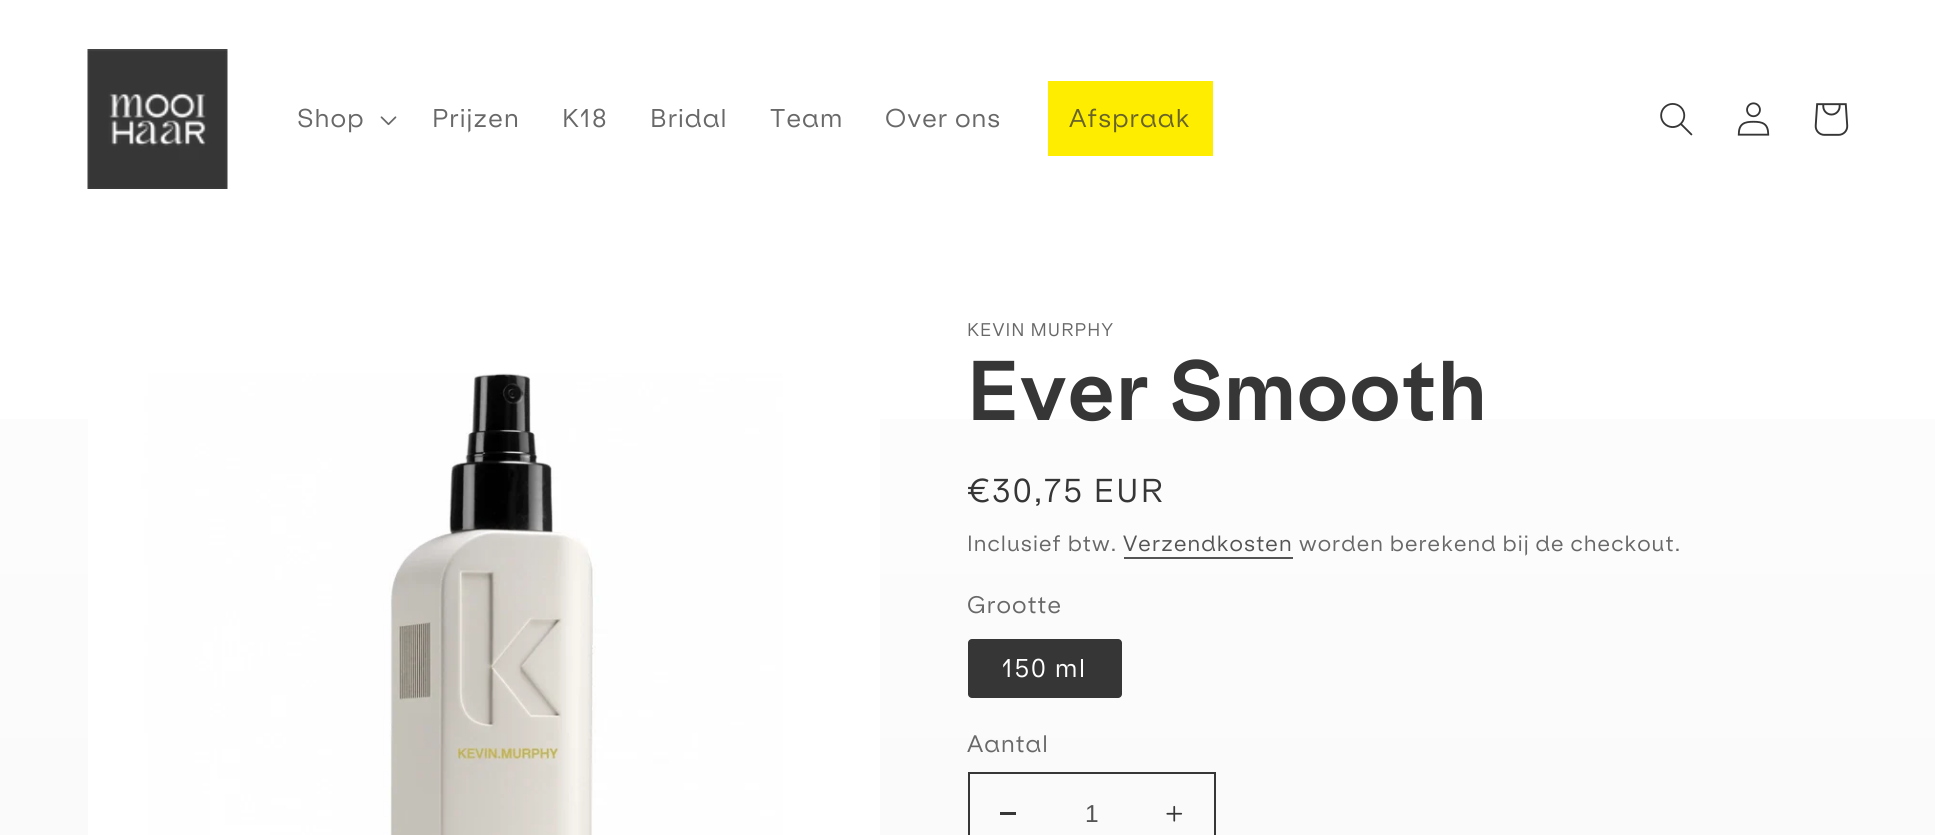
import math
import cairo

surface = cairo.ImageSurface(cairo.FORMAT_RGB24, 1935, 835)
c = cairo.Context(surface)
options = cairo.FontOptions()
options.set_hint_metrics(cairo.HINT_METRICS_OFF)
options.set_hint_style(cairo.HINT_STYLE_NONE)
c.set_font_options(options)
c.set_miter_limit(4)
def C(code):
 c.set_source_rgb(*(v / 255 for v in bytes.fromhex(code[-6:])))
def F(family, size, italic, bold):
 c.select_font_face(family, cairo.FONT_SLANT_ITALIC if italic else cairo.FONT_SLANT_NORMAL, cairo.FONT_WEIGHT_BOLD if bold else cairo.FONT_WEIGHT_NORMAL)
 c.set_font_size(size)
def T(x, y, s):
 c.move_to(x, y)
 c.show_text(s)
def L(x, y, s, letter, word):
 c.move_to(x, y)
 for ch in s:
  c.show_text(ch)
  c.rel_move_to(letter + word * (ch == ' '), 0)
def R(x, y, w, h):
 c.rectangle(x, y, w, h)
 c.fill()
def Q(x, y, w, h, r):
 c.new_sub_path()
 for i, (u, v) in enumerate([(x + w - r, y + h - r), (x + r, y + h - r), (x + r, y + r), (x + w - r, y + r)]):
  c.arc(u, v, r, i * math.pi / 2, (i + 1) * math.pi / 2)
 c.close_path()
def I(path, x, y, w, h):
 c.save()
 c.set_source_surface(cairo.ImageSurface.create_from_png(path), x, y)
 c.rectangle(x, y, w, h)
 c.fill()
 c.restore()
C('ffffff')
c.paint()
gradient = cairo.LinearGradient(968,0,968,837)
gradient.add_color_stop_rgba(0,1,1,1,1)
gradient.add_color_stop_rgba(1,0.98,0.98,0.98,1)
c.set_source(gradient)
R(0,419,1935,416)
I('1.png',87,49,141,140)
F('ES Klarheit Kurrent',24.5,0,0)
C('686868')
L(297,127,'Shop',1.05,0)
I('2.png',380,116,17,10)
L(432,127,'Prijzen',1.05,0)
L(562,127,'K18',1.05,0)
L(650,127,'Bridal',1.05,0)
L(770,127,'Team',1.05,0)
L(885,127,'Over ons',1.05,0)
C('ffed00')
R(1048,81,165,75)
C('686429')
L(1069,127,'Afspraak',1.05,0)
I('3.png',1660,103,33,33)
I('4.png',1737,102,33,34)
I('5.png',1814,103,35,33)
I('6.png',88,373,792,462)
F('ES Klarheit Kurrent',17.5,0,0)
C('686868')
L(967,336,'KEVIN MURPHY',1.05,0)
F('ES Klarheit Kurrent',80.5,0,1)
C('363636')
L(967,420,'Ever Smooth',1.05,0)
F('ES Klarheit Kurrent',31.5,0,0)
L(967,502,'€30,75 EUR',2.25,0)
F('ES Klarheit Kurrent',21,0,0)
C('686868')
L(967,551,'Inclusief btw.',1.05,0)
C('545454')
L(1123,551,'Verzendkosten',1.05,0)
R(1124,557,169,2)
C('686868')
L(1299,551,'worden berekend bij de checkout.',1.05,0)
F('ES Klarheit Kurrent',22.75,0,0)
L(967,613,'Grootte',1.05,0)
C('363636')
Q(968,639,154,59,4)
c.fill()
F('ES Klarheit Kurrent',24.5,0,0)
C('ffffff')
L(1002,677,'150 ml',1.75,0)
F('ES Klarheit Kurrent',22.75,0,0)
C('686868')
L(967,752,'Aantal',1.05,0)
C('363636')
R(1000,812,16,3)
I('7.png',1166,805,17,17)
c.rectangle(969,773,246,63)
c.stroke()
F('Liberation Sans',24.5,0,0)
C('545454')
T(1085,822,'1')
surface.write_to_png('o.png')
